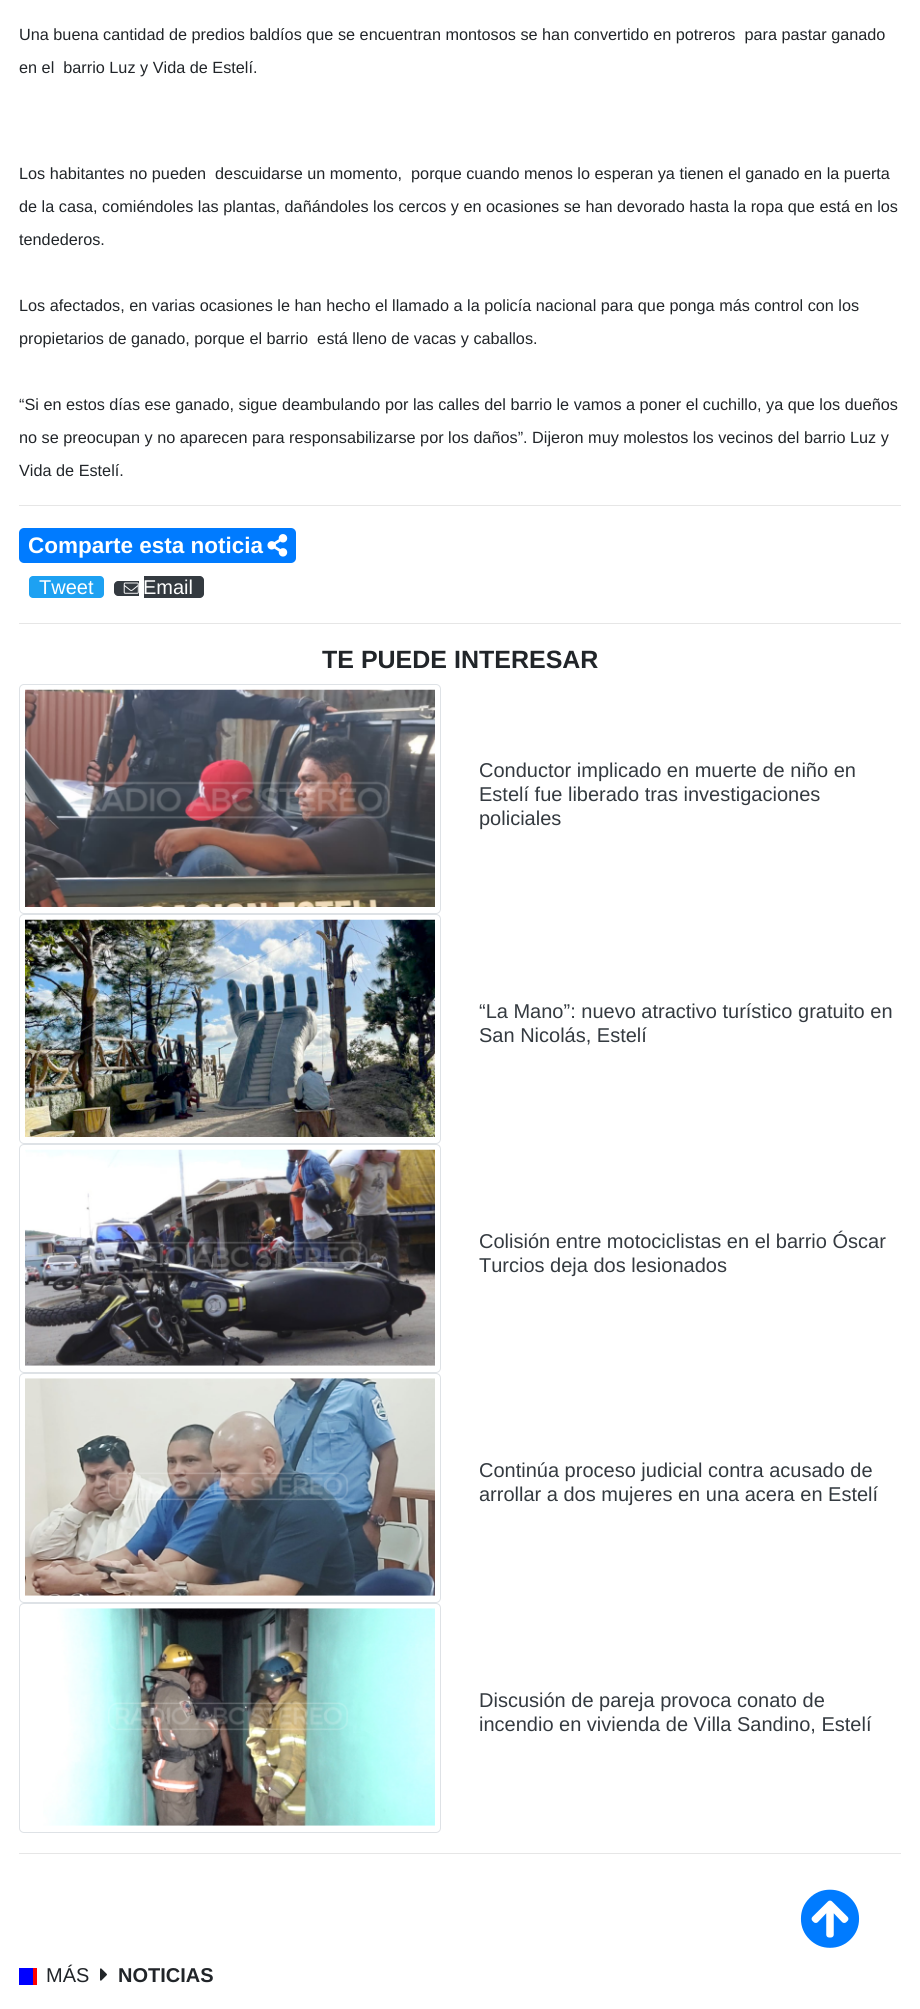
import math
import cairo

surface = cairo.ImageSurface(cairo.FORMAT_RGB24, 920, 2009)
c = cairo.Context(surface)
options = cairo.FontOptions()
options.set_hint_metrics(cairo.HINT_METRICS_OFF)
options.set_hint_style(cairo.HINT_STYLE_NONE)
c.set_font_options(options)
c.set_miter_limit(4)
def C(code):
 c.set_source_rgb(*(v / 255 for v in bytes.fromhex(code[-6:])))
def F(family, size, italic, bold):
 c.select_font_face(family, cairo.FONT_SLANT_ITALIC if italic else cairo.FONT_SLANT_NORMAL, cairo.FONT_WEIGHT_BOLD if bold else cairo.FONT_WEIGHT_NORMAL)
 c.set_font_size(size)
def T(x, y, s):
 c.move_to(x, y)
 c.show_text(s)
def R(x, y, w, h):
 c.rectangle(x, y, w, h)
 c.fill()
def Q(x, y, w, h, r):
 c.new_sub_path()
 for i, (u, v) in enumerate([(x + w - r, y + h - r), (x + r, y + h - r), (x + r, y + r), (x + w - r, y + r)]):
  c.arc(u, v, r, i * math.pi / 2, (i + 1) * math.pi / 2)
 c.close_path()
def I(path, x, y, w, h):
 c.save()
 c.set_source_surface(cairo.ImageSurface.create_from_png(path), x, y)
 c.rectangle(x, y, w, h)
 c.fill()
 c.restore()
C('ffffff')
c.paint()
F('Liberation Sans',16.25,0,0)
C('212529')
T(19,40,'Una buena cantidad de predios baldíos que se encuentran montosos se han convertido en potreros  para pastar ganado')
T(19,73,'en el  barrio Luz y Vida de Estelí.')
T(19,179,'Los habitantes no pueden  descuidarse un momento,  porque cuando menos lo esperan ya tienen el ganado en la puerta')
T(19,212,'de la casa, comiéndoles las plantas, dañándoles los cercos y en ocasiones se han devorado hasta la ropa que está en los')
T(19,245,'tendederos.')
T(19,311,'Los afectados, en varias ocasiones le han hecho el llamado a la policía nacional para que ponga más control con los')
T(19,344,'propietarios de ganado, porque el barrio  está lleno de vacas y caballos.')
T(19,410,'“Si en estos días ese ganado, sigue deambulando por las calles del barrio le vamos a poner el cuchillo, ya que los dueños')
T(19,443,'no se preocupan y no aparecen para responsabilizarse por los daños”. Dijeron muy molestos los vecinos del barrio Luz y')
T(19,476,'Vida de Estelí.')
C('e6e6e6')
R(19,505,882,1)
C('007bff')
Q(19,528,277,35,5)
c.fill()
F('Liberation Sans',22.5,0,1)
C('ffffff')
T(28,553,'Comparte esta noticia')
I('1.png',267,534,21,23)
C('1da1f2')
Q(29,576,75,22,4)
c.fill()
F('Liberation Sans',20,0,0)
C('ffffff')
T(39,594,'Tweet')
C('343a40')
c.new_path()
c.move_to(118,581)
c.line_to(139,581)
c.line_to(139,596)
c.line_to(118,596)
c.curve_to(116,596,114,594,114,592)
c.line_to(114,585)
c.curve_to(114,583,116,581,118,581)
c.close_path()
c.fill()
c.new_path()
c.move_to(144,576)
c.line_to(200,576)
c.curve_to(202,576,204,578,204,580)
c.line_to(204,594)
c.curve_to(204,596,202,598,200,598)
c.line_to(144,598)
c.close_path()
c.fill()
I('2.png',123,582,16,12)
C('ffffff')
T(143,594,'Email')
C('e6e6e6')
R(19,623,882,1)
F('Liberation Sans',25,0,1)
C('212529')
T(322,668,'TE PUEDE INTERESAR')
Q(19.5,684.5,421,229,4.5)
C('dee2e6')
c.set_line_width(1)
c.stroke()
I('3.png',25,689,410,218)
F('Liberation Sans',20,0,0)
C('343a40')
T(479,777,'Conductor implicado en muerte de niño en')
T(479,801,'Estelí fue liberado tras investigaciones')
T(479,825,'policiales')
Q(19.5,914.5,421,229,4.5)
C('dee2e6')
c.stroke()
I('4.png',25,919,410,218)
C('343a40')
T(479,1018,'“La Mano”: nuevo atractivo turístico gratuito en')
T(479,1042,'San Nicolás, Estelí')
Q(19.5,1144.5,421,228,4.5)
C('dee2e6')
c.stroke()
I('5.png',25,1149,410,217)
C('343a40')
T(479,1248,'Colisión entre motociclistas en el barrio Óscar')
T(479,1272,'Turcios deja dos lesionados')
Q(19.5,1373.5,421,229,4.5)
C('dee2e6')
c.stroke()
I('6.png',25,1378,410,218)
C('343a40')
T(479,1477,'Continúa proceso judicial contra acusado de')
T(479,1501,'arrollar a dos mujeres en una acera en Estelí')
Q(19.5,1603.5,421,229,4.5)
C('dee2e6')
c.stroke()
I('7.png',43,1608,392,218)
C('343a40')
T(479,1707,'Discusión de pareja provoca conato de')
T(479,1731,'incendio en vivienda de Villa Sandino, Estelí')
C('e6e6e6')
R(19,1853,882,1)
C('0000ff')
R(19,1968,14,17)
C('ff0000')
R(33,1968,4,17)
C('212529')
T(46,1982,'MÁS')
I('8.png',100,1968,7,13)
F('Liberation Sans',20,0,1)
T(118,1982,'NOTICIAS')
I('9.png',800,1889,60,59)
surface.write_to_png('o.png')
